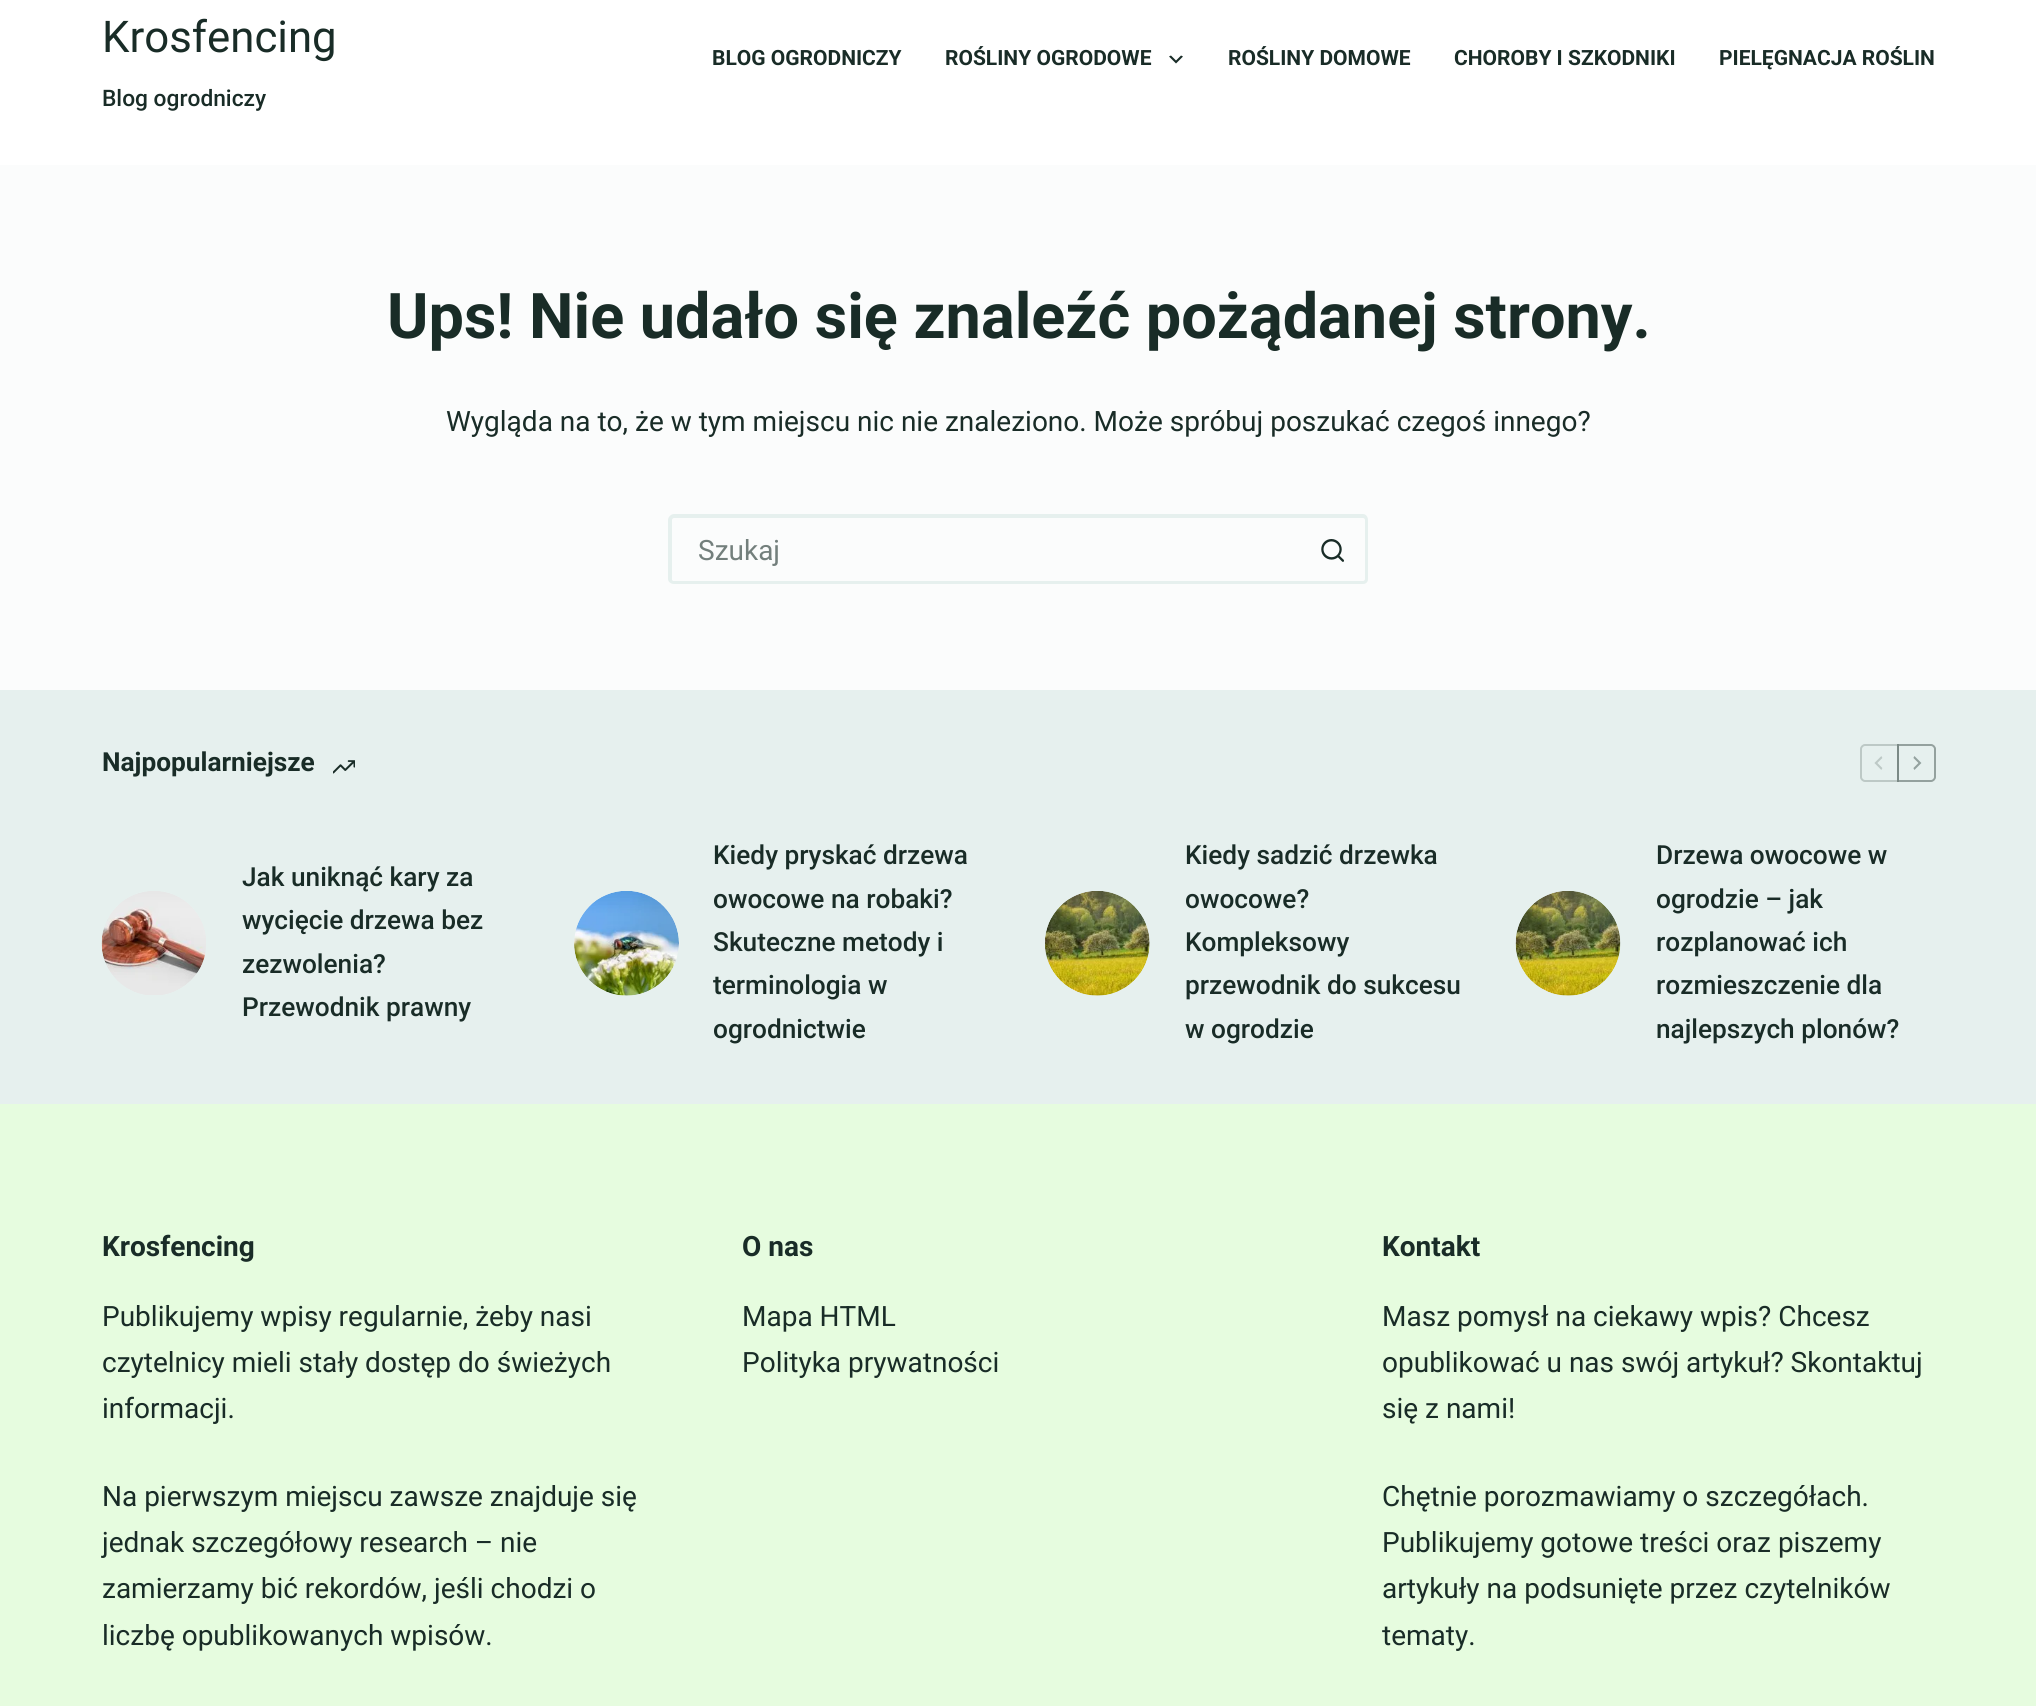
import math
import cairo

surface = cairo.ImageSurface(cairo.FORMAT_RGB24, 2036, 1706)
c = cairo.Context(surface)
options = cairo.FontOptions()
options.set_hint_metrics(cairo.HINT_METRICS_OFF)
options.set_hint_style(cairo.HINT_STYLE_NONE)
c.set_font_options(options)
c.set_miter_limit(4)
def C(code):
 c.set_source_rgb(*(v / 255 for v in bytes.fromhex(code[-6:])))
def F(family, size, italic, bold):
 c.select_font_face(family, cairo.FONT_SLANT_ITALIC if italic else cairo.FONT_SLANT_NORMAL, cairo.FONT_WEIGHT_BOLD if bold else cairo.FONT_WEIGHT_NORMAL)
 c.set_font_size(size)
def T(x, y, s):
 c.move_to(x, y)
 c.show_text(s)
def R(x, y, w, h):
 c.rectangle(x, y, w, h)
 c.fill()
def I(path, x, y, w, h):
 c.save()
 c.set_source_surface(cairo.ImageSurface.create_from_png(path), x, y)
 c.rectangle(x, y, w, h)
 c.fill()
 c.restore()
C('fbfcfc')
c.paint()
C('ffffff')
R(0,0,2036,165)
F('Roboto',43.75,0,0)
C('192c27')
T(102,52,'Krosfencing')
F('Roboto Medium',22.75,0,0)
T(102,106,'Blog ogrodniczy')
F('Roboto',21,0,1)
T(712,65,'BLOG OGRODNICZY')
T(945,65,'ROŚLINY OGRODOWE')
I('1.png',1169,55,14,9)
T(1228,65,'ROŚLINY DOMOWE')
T(1454,65,'CHOROBY I SZKODNIKI')
T(1719,65,'PIELĘGNACJA ROŚLIN')
F('Roboto',63,0,1)
T(387,338,'Ups! Nie udało się znaleźć pożądanej strony.')
F('Roboto',28,0,0)
T(446,431,'Wygląda na to, że w tym miejscu nic nie znaleziono. Może spróbuj poszukać czegoś innego?')
C('e6f0ee')
c.set_fill_rule(cairo.FILL_RULE_EVEN_ODD)
c.new_path()
c.move_to(674,514)
c.line_to(1298,514)
c.line_to(1298,584)
c.line_to(674,584)
c.curve_to(671,584,668,582,668,579)
c.line_to(668,520)
c.curve_to(668,517,671,514,674,514)
c.close_path()
c.move_to(674,518)
c.line_to(1298,518)
c.line_to(1298,581)
c.line_to(673,581)
c.line_to(672,580)
c.line_to(672,520)
c.curve_to(672,519,673,518,674,518)
c.close_path()
c.fill()
C('737f7c')
T(698,560,'Szukaj')
C('e6f0ee')
c.new_path()
c.move_to(1298,514)
c.line_to(1363,514)
c.curve_to(1366,514,1368,517,1368,520)
c.line_to(1368,579)
c.curve_to(1368,582,1366,584,1363,584)
c.line_to(1298,584)
c.close_path()
c.move_to(1298,518)
c.line_to(1363,518)
c.curve_to(1364,518,1365,519,1365,520)
c.line_to(1365,579)
c.curve_to(1365,580,1364,581,1363,581)
c.line_to(1298,581)
c.close_path()
c.fill()
I('2.png',1321,539,23,23)
R(0,690,2036,414)
F('Roboto',26.25,0,1)
C('192c27')
T(102,771,'Najpopularniejsze')
I('3.png',333,760,22,14)
c.new_path()
c.move_to(1865,745)
c.line_to(1898,745)
c.line_to(1898,781)
c.line_to(1865,781)
c.curve_to(1863,781,1861,779,1861,777)
c.line_to(1861,749)
c.curve_to(1861,747,1863,745,1865,745)
c.close_path()
C('bdc9c6')
c.stroke()
I('4.png',1874,756,9,14)
c.new_path()
c.move_to(1898,745)
c.line_to(1931,745)
c.curve_to(1933,745,1935,747,1935,749)
c.line_to(1935,777)
c.curve_to(1935,779,1933,781,1931,781)
c.line_to(1898,781)
c.close_path()
c.set_source_rgba(0.098,0.173,0.153,0.4)
c.stroke()
I('5.png',1913,756,9,14)
I('6.png',101,891,105,104)
F('Roboto Medium',26.25,0,0)
C('192c27')
T(242,886,'Jak uniknąć kary za')
T(242,929,'wycięcie drzewa bez')
T(242,973,'zezwolenia?')
T(242,1016,'Przewodnik prawny')
I('7.png',574,891,105,105)
T(713,864,'Kiedy pryskać drzewa')
T(713,908,'owocowe na robaki?')
T(713,951,'Skuteczne metody i')
T(713,994,'terminologia w')
T(713,1038,'ogrodnictwie')
I('8.png',1045,891,105,105)
T(1185,864,'Kiedy sadzić drzewka')
T(1185,908,'owocowe?')
T(1185,951,'Kompleksowy')
T(1185,994,'przewodnik do sukcesu')
T(1185,1038,'w ogrodzie')
I('9.png',1515,891,106,105)
T(1656,864,'Drzewa owocowe w')
T(1656,908,'ogrodzie – jak')
T(1656,951,'rozplanować ich')
T(1656,994,'rozmieszczenie dla')
T(1656,1038,'najlepszych plonów?')
C('e6fcdf')
R(0,1104,2036,602)
F('Roboto',28,0,1)
C('192c27')
T(102,1256,'Krosfencing')
F('Roboto',28,0,0)
T(102,1326,'Publikujemy wpisy regularnie, żeby nasi')
T(102,1372,'czytelnicy mieli stały dostęp do świeżych')
T(102,1418,'informacji.')
T(102,1506,'Na pierwszym miejscu zawsze znajduje się')
T(102,1552,'jednak szczegółowy research – nie')
T(102,1598,'zamierzamy bić rekordów, jeśli chodzi o')
T(102,1645,'liczbę opublikowanych wpisów.')
F('Roboto',28,0,1)
T(742,1256,'O nas')
F('Roboto',28,0,0)
T(742,1326,'Mapa HTML')
T(742,1372,'Polityka prywatności')
F('Roboto',28,0,1)
T(1382,1256,'Kontakt')
F('Roboto',28,0,0)
T(1382,1326,'Masz pomysł na ciekawy wpis? Chcesz')
T(1382,1372,'opublikować u nas swój artykuł? Skontaktuj')
T(1382,1418,'się z nami!')
T(1382,1506,'Chętnie porozmawiamy o szczegółach.')
T(1382,1552,'Publikujemy gotowe treści oraz piszemy')
T(1382,1598,'artykuły na podsunięte przez czytelników')
T(1382,1645,'tematy.')
surface.write_to_png('o.png')
